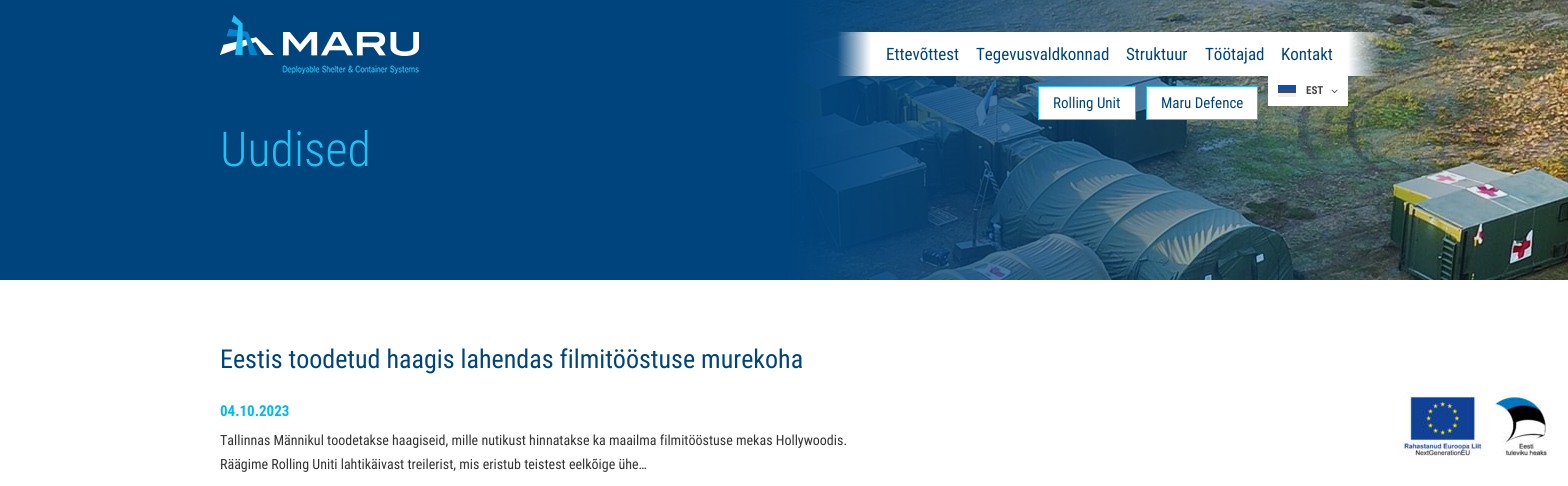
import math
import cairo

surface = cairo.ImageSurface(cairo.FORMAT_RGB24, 1568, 486)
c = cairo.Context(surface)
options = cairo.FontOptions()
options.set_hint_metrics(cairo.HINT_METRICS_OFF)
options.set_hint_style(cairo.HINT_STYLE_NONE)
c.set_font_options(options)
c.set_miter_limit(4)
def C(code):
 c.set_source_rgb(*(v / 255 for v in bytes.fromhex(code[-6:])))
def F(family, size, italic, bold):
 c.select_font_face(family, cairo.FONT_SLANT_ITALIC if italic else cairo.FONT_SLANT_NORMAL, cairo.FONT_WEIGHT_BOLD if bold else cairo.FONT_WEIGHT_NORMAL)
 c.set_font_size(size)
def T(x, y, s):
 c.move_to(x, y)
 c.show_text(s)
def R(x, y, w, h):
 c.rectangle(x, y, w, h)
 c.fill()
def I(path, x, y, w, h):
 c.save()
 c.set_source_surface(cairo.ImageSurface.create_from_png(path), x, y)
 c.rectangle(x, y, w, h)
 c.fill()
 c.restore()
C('ffffff')
c.paint()
C('00447d')
R(0,0,784,280)
I('1.png',220,15,199,59)
I('3.png',784,0,784,280)
C('ffffff')
R(871,32,477,44)
F('Roboto Condensed',17,0,0)
C('00447d')
T(886,60,'Ettevõttest')
T(976,60,'Tegevusvaldkonnad')
T(1126,60,'Struktuur')
T(1205,60,'Töötajad')
T(1281,60,'Kontakt')
C('ffffff')
R(1268,76,80,30)
C('464655')
R(1278,89,18,4)
C('f0f0f0')
R(1278,93,18,4)
C('0052b4')
R(1278,85,18,4)
F('Roboto Condensed',11,0,1)
C('444444')
T(1306,94,'EST')
I('2.png',1331,89,7,5)
C('ffffff')
c.rectangle(1038.5,86.5,97,33)
c.fill_preserve()
C('22c0f1')
c.set_line_width(1)
c.stroke()
F('Roboto Condensed',15,0,0)
C('00447d')
T(1053,108,'Rolling Unit')
C('ffffff')
c.rectangle(1146.5,86.5,111,33)
c.fill_preserve()
C('22c0f1')
c.stroke()
C('00447d')
T(1161,108,'Maru Defence')
F('Roboto Condensed Light',48,0,0)
C('22c0f1')
T(220,166,'Uudised')
F('Roboto Condensed',26,0,0)
C('00447d')
T(220,368,'Eestis toodetud haagis lahendas filmitööstuse murekoha')
F('Roboto Condensed',15,0,1)
C('00b9ef')
T(220,416,'04.10.2023')
F('Roboto Condensed',14,0,0)
C('333333')
T(220,445,'Tallinnas Männikul toodetakse haagiseid, mille nutikust hinnatakse ka maailma filmitööstuse mekas Hollywoodis.')
T(220,469,'Räägime Rolling Uniti lahtikäivast treilerist, mis eristub teistest eelkõige ühe…')
I('4.png',1398,392,152,64)
surface.write_to_png('o.png')
